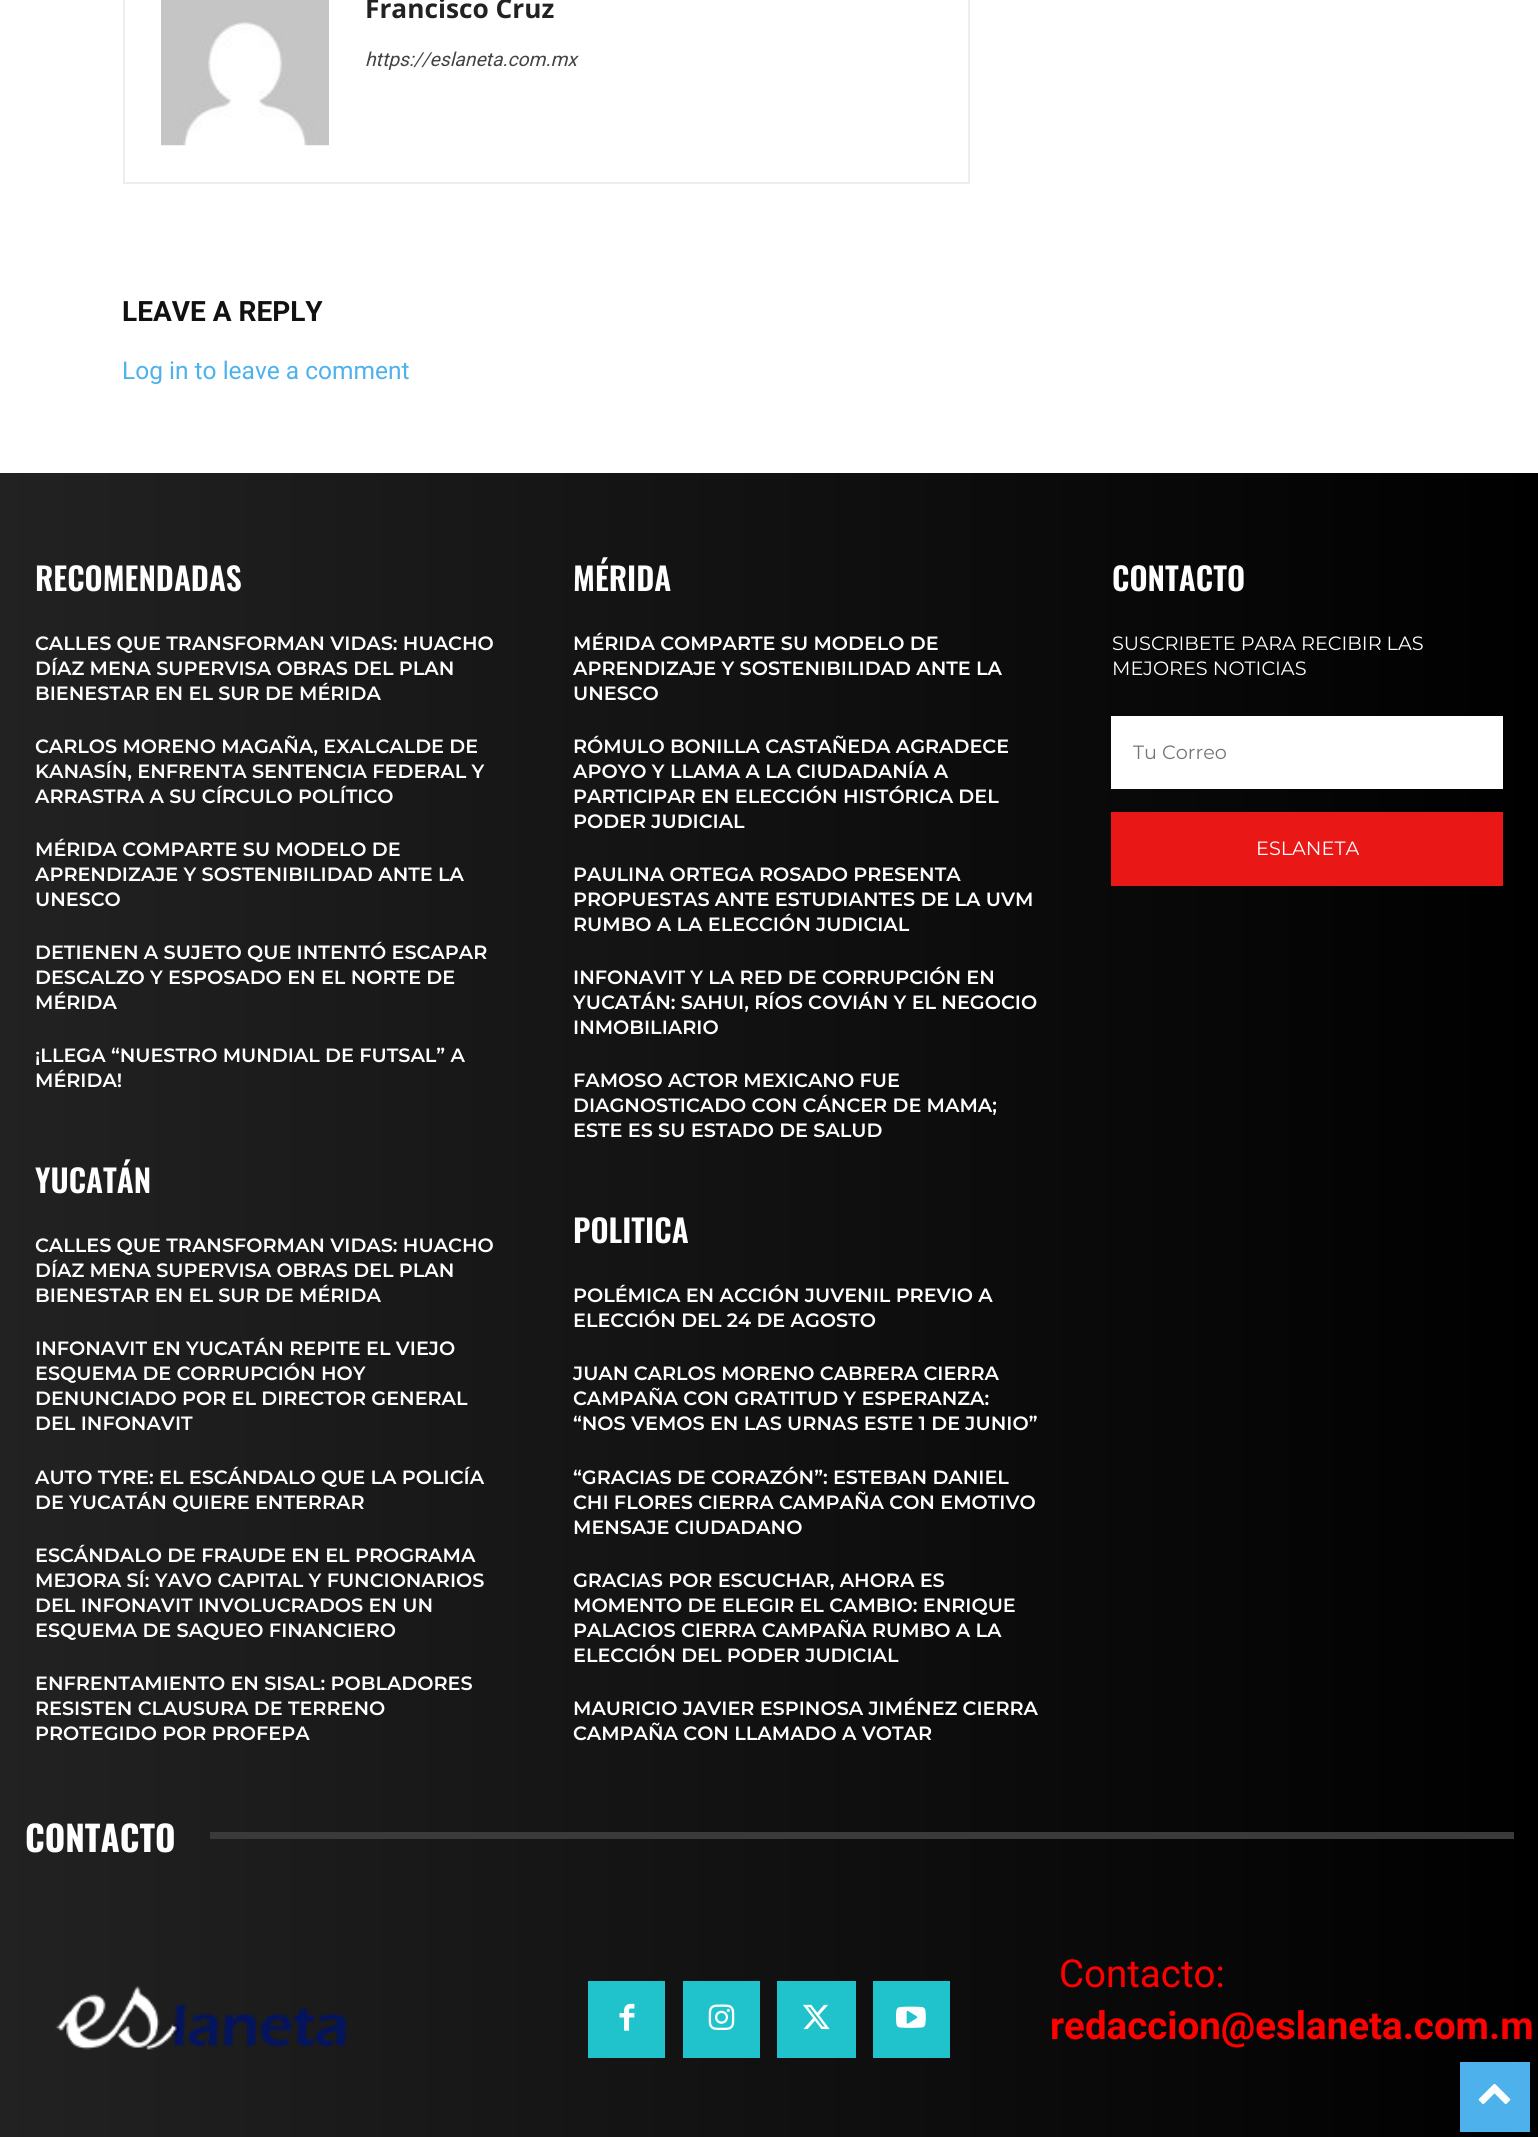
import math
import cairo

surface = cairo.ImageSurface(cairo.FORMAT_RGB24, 1538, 2137)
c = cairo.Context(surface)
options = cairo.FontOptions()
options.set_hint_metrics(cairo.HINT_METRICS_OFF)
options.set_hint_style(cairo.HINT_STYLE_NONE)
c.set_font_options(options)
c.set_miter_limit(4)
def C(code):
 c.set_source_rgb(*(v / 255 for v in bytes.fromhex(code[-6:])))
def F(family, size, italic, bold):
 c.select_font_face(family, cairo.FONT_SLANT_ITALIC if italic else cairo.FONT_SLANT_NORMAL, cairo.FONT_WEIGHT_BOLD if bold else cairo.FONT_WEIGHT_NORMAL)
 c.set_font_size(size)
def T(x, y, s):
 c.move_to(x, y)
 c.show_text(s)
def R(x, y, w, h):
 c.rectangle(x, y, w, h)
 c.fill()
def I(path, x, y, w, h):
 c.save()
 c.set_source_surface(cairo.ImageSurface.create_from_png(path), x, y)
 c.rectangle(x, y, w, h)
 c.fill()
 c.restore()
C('ffffff')
c.paint()
c.rectangle(124,-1,845,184)
C('ededed')
c.stroke()
I('1.png',161,0,168,146)
F('Open Sans',26.25,0,1)
C('222222')
T(365,18,'Francisco Cruz')
F('Roboto',19.25,1,0)
C('444444')
T(365,66,'https://eslaneta.com.mx')
F('Roboto',28,0,1)
C('111111')
T(122,321,'LEAVE A REPLY')
F('Roboto',24.5,0,0)
C('4db2ec')
T(122,379,'Log in to leave a comment')
gradient = cairo.LinearGradient(1538,1340,0,1340)
gradient.add_color_stop_rgba(0,0,0,0,1)
gradient.add_color_stop_rgba(1,0.133,0.133,0.133,1)
c.set_source(gradient)
R(0,473,1538,1664)
F('Oswald SemiBold',31.5,0,0)
C('ffffff')
T(35,591,'RECOMENDADAS')
F('Montserrat SemiBold',19.25,0,0)
T(35,650,'CALLES QUE TRANSFORMAN VIDAS: HUACHO')
T(35,675,'DÍAZ MENA SUPERVISA OBRAS DEL PLAN')
T(35,700,'BIENESTAR EN EL SUR DE MÉRIDA')
T(35,753,'CARLOS MORENO MAGAÑA, EXALCALDE DE')
T(35,778,'KANASÍN, ENFRENTA SENTENCIA FEDERAL Y')
T(35,803,'ARRASTRA A SU CÍRCULO POLÍTICO')
T(35,856,'MÉRIDA COMPARTE SU MODELO DE')
T(35,881,'APRENDIZAJE Y SOSTENIBILIDAD ANTE LA')
T(35,906,'UNESCO')
T(35,959,'DETIENEN A SUJETO QUE INTENTÓ ESCAPAR')
T(35,984,'DESCALZO Y ESPOSADO EN EL NORTE DE')
T(35,1009,'MÉRIDA')
T(35,1062,'¡LLEGA “NUESTRO MUNDIAL DE FUTSAL” A')
T(35,1087,'MÉRIDA!')
F('Oswald SemiBold',31.5,0,0)
T(35,1193,'YUCATÁN')
F('Montserrat SemiBold',19.25,0,0)
T(35,1252,'CALLES QUE TRANSFORMAN VIDAS: HUACHO')
T(35,1277,'DÍAZ MENA SUPERVISA OBRAS DEL PLAN')
T(35,1302,'BIENESTAR EN EL SUR DE MÉRIDA')
T(35,1355,'INFONAVIT EN YUCATÁN REPITE EL VIEJO')
T(35,1380,'ESQUEMA DE CORRUPCIÓN HOY')
T(35,1405,'DENUNCIADO POR EL DIRECTOR GENERAL')
T(35,1430,'DEL INFONAVIT')
T(35,1484,'AUTO TYRE: EL ESCÁNDALO QUE LA POLICÍA')
T(35,1509,'DE YUCATÁN QUIERE ENTERRAR')
T(35,1562,'ESCÁNDALO DE FRAUDE EN EL PROGRAMA')
T(35,1587,'MEJORA SÍ: YAVO CAPITAL Y FUNCIONARIOS')
T(35,1612,'DEL INFONAVIT INVOLUCRADOS EN UN')
T(35,1637,'ESQUEMA DE SAQUEO FINANCIERO')
T(35,1690,'ENFRENTAMIENTO EN SISAL: POBLADORES')
T(35,1715,'RESISTEN CLAUSURA DE TERRENO')
T(35,1740,'PROTEGIDO POR PROFEPA')
F('Oswald SemiBold',31.5,0,0)
T(573,591,'MÉRIDA')
F('Montserrat SemiBold',19.25,0,0)
T(573,650,'MÉRIDA COMPARTE SU MODELO DE')
T(573,675,'APRENDIZAJE Y SOSTENIBILIDAD ANTE LA')
T(573,700,'UNESCO')
T(573,753,'RÓMULO BONILLA CASTAÑEDA AGRADECE')
T(573,778,'APOYO Y LLAMA A LA CIUDADANÍA A')
T(573,803,'PARTICIPAR EN ELECCIÓN HISTÓRICA DEL')
T(573,828,'PODER JUDICIAL')
T(573,881,'PAULINA ORTEGA ROSADO PRESENTA')
T(573,906,'PROPUESTAS ANTE ESTUDIANTES DE LA UVM')
T(573,931,'RUMBO A LA ELECCIÓN JUDICIAL')
T(573,984,'INFONAVIT Y LA RED DE CORRUPCIÓN EN')
T(573,1009,'YUCATÁN: SAHUI, RÍOS COVIÁN Y EL NEGOCIO')
T(573,1034,'INMOBILIARIO')
T(573,1087,'FAMOSO ACTOR MEXICANO FUE')
T(573,1112,'DIAGNOSTICADO CON CÁNCER DE MAMA;')
T(573,1137,'ESTE ES SU ESTADO DE SALUD')
F('Oswald SemiBold',31.5,0,0)
T(573,1243,'POLITICA')
F('Montserrat SemiBold',19.25,0,0)
T(573,1302,'POLÉMICA EN ACCIÓN JUVENIL PREVIO A')
T(573,1327,'ELECCIÓN DEL 24 DE AGOSTO')
T(573,1380,'JUAN CARLOS MORENO CABRERA CIERRA')
T(573,1405,'CAMPAÑA CON GRATITUD Y ESPERANZA:')
T(573,1430,'“NOS VEMOS EN LAS URNAS ESTE 1 DE JUNIO”')
T(573,1484,'“GRACIAS DE CORAZÓN”: ESTEBAN DANIEL')
T(573,1509,'CHI FLORES CIERRA CAMPAÑA CON EMOTIVO')
T(573,1534,'MENSAJE CIUDADANO')
T(573,1587,'GRACIAS POR ESCUCHAR, AHORA ES')
T(573,1612,'MOMENTO DE ELEGIR EL CAMBIO: ENRIQUE')
T(573,1637,'PALACIOS CIERRA CAMPAÑA RUMBO A LA')
T(573,1662,'ELECCIÓN DEL PODER JUDICIAL')
T(573,1715,'MAURICIO JAVIER ESPINOSA JIMÉNEZ CIERRA')
T(573,1740,'CAMPAÑA CON LLAMADO A VOTAR')
F('Oswald SemiBold',31.5,0,0)
T(1112,591,'CONTACTO')
F('Montserrat',19.25,0,0)
T(1112,650,'SUSCRIBETE PARA RECIBIR LAS')
T(1112,675,'MEJORES NOTICIAS')
R(1111,716,392,73)
C('757575')
T(1133,759,'Tu Correo')
C('ea1717')
R(1111,812,392,74)
C('ffffff')
T(1256,855,'ESLANETA')
F('Oswald',35,0,1)
T(25,1852,'CONTACTO')
C('3a3a3a')
R(210,1832,1304,7)
I('2.png',55,1986,292,64)
C('20c3cc')
R(588,1981,77,77)
I('3.png',619,2003,16,28)
R(683,1981,77,77)
I('4.png',708,2004,27,26)
R(777,1981,79,77)
I('5.png',803,2004,27,26)
R(873,1981,77,77)
I('6.png',896,2006,30,22)
F('Roboto',38.5,0,0)
C('ff0000')
T(1059,1987,'Contacto:')
F('Roboto',38.5,0,1)
T(1050,2039,'redaccion@eslaneta.com.m')
C('4db2ec')
R(1460,2062,70,70)
I('7.png',1478,2083,33,21)
surface.write_to_png('o.png')
